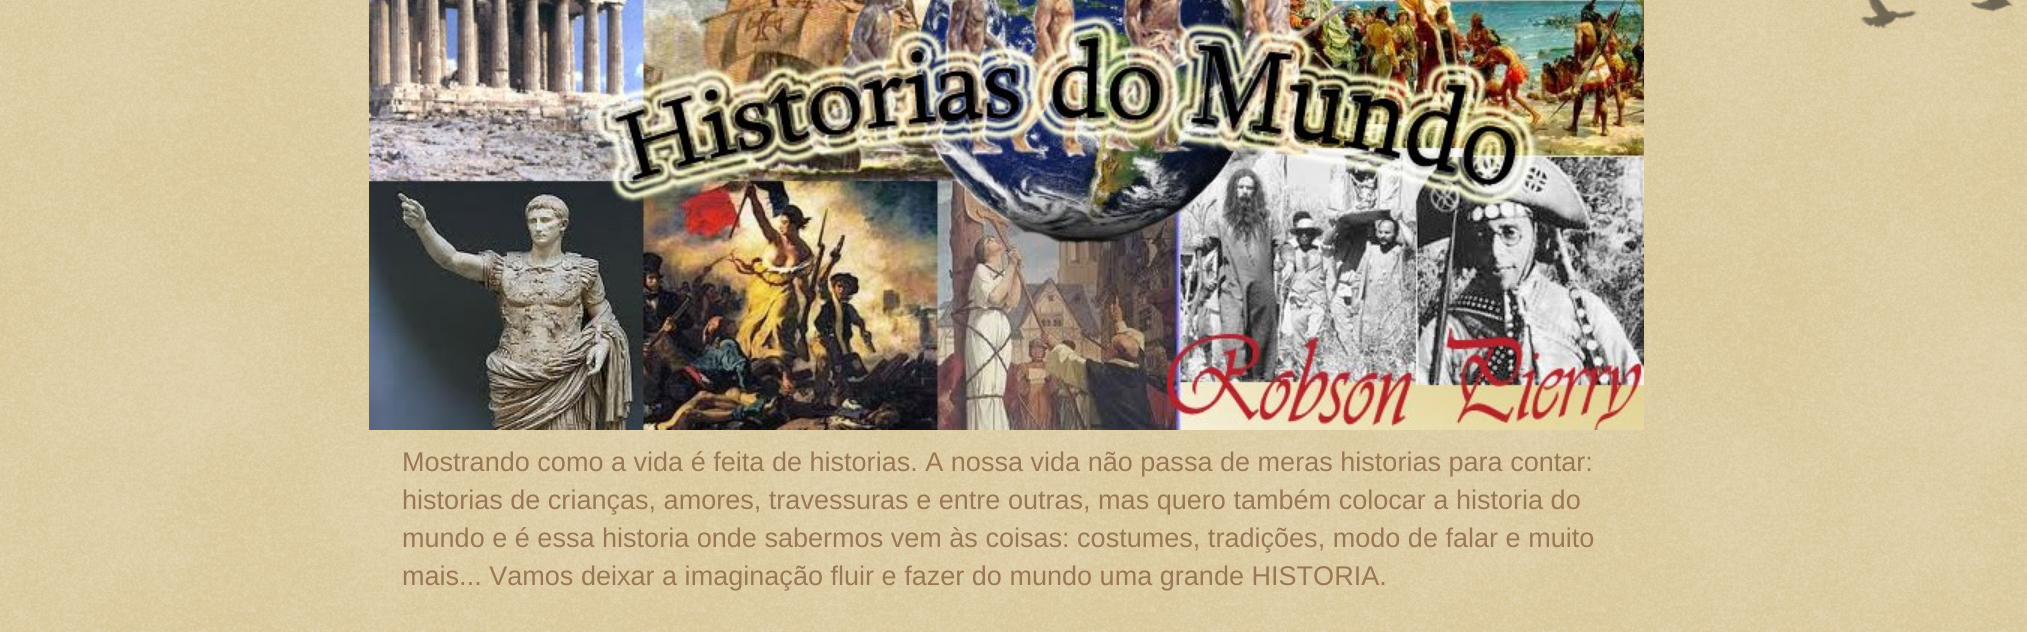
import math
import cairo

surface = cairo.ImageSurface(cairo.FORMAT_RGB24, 2027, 632)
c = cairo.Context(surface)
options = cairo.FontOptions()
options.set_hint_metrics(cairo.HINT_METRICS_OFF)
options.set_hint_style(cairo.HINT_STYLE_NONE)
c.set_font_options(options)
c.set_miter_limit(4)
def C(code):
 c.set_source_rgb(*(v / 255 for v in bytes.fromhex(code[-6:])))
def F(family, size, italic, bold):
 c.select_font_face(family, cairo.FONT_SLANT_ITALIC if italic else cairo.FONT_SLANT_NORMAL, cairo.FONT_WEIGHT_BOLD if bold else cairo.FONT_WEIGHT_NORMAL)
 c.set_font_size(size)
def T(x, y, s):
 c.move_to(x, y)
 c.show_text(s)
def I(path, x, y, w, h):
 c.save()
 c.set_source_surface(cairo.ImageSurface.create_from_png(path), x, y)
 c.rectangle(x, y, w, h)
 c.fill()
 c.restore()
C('c0a154')
c.paint()
I('1.png',0,0,2027,632)
I('2.png',1860,0,154,29)
I('3.png',369,0,1275,430)
F('Liberation Sans',27.05,0,0)
C('997755')
T(402,471,'Mostrando como a vida é feita de historias. A nossa vida não passa de meras historias para contar:')
T(402,509,'historias de crianças, amores, travessuras e entre outras, mas quero também colocar a historia do')
T(402,547,'mundo e é essa historia onde sabermos vem às coisas: costumes, tradições, modo de falar e muito')
T(402,585,'mais... Vamos deixar a imaginação fluir e fazer do mundo uma grande HISTORIA.')
surface.write_to_png('o.png')
